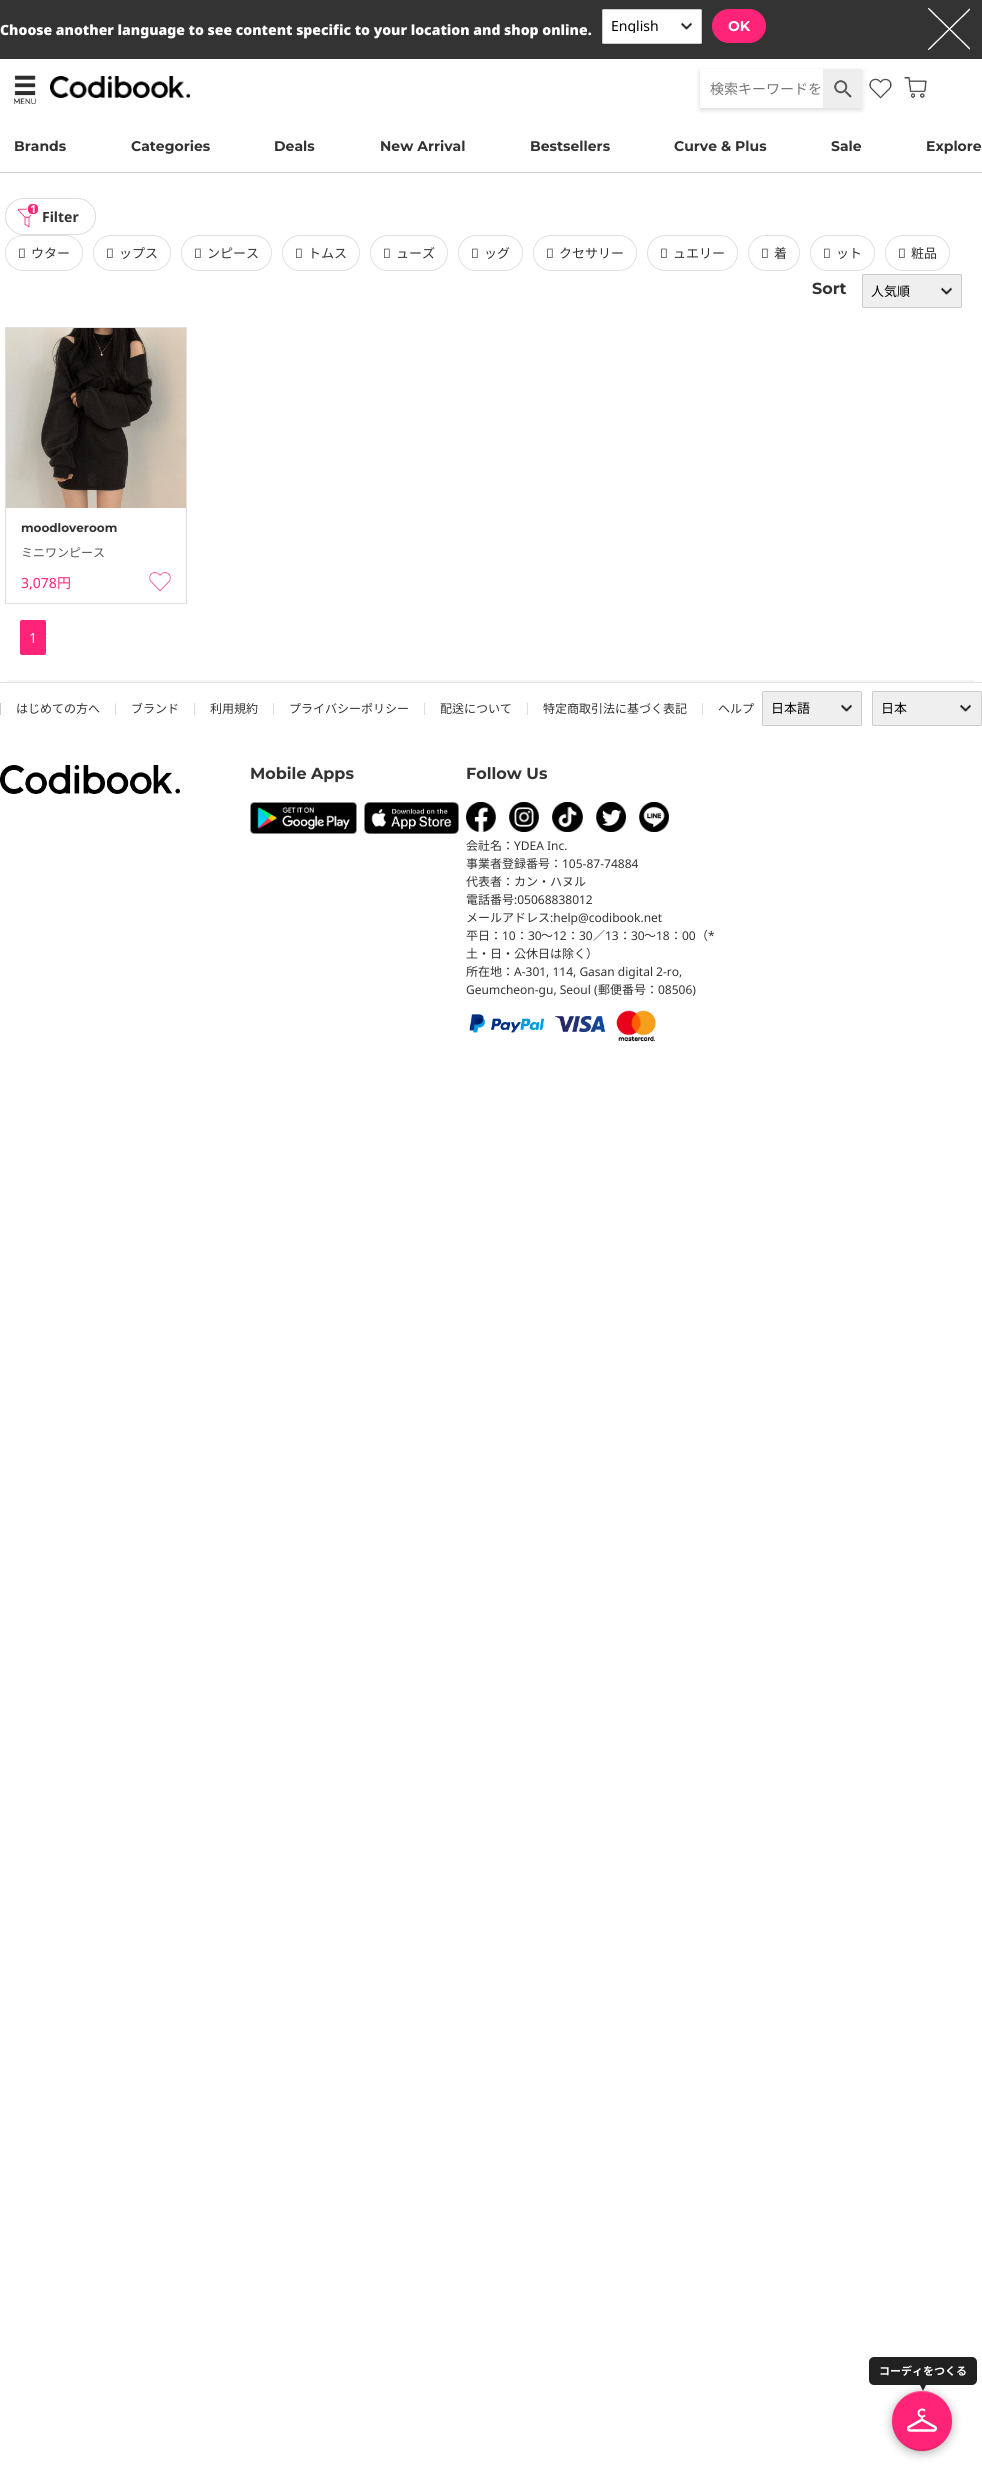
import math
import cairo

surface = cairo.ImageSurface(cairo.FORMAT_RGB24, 982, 2475)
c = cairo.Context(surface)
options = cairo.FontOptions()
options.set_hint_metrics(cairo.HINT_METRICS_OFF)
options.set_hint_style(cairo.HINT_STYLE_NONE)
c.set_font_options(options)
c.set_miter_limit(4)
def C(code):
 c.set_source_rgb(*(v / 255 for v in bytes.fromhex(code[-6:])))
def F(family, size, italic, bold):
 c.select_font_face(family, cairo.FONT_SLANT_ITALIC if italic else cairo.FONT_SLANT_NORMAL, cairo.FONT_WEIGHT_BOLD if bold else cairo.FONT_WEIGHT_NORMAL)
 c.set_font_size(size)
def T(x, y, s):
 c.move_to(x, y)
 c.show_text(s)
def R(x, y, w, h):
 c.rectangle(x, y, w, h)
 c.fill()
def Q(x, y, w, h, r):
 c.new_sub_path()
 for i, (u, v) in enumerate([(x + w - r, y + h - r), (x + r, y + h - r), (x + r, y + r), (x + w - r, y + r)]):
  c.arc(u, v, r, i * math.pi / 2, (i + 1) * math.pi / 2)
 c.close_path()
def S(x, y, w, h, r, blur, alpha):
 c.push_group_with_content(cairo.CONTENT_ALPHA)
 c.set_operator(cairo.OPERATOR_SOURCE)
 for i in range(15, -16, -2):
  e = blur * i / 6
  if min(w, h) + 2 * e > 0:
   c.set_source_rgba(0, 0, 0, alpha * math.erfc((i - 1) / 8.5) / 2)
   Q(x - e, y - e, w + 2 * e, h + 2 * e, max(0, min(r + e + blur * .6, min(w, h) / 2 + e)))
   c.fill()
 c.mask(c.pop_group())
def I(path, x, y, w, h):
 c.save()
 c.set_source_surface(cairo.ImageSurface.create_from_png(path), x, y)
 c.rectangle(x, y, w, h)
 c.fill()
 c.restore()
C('ffffff')
c.paint()
C('333333')
R(0,0,982,59)
F('Noto Sans Black',14,0,0)
C('ffffff')
T(0,35,'Choose another language to see content specific to your location and shop online.')
Q(602,9,100,35,2)
c.fill()
I('1.png',681,22,11,8)
Q(602.5,9.5,99,34,1.5)
C('cccccc')
c.set_line_width(1)
c.stroke()
c.save()
c.rectangle(611,19,70,14)
c.clip()
F('Noto Sans',14,0,0)
C('000000')
T(611,31,'English')
c.restore()
C('ff2477')
Q(712.5,9.5,53,33,16.5)
c.fill_preserve()
c.stroke()
F('Montserrat',14,0,1)
C('ffffff')
T(728,31,'OK')
I('2.png',928,8,42,42)
C('cccccc')
R(0,172,982,1)
I('3.png',14,75,22,29)
I('4.png',50,76,140,22)
I('6.png',869,78,23,21)
c.save()
c.set_fill_rule(cairo.FILL_RULE_EVEN_ODD)
c.new_path()
c.move_to(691,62)
c.line_to(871,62)
c.line_to(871,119)
c.line_to(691,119)
c.close_path()
c.move_to(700,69)
c.line_to(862,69)
c.line_to(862,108)
c.line_to(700,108)
c.close_path()
c.clip()
C('000000')
S(700,71,162,39,0,2.5,.15)
c.restore()
F('Noto Sans KR',14,0,0)
C('757575')
T(710,94,'検索キーワードを')
C('eeeeee')
R(823,69,39,39)
I('5.png',834,80,18,18)
I('7.png',904,76,23,23)
F('Montserrat',14,0,1)
C('333333')
T(14,151,'Brands')
T(131,151,'Categories')
T(274,151,'Deals')
T(380,151,'New Arrival')
T(530,151,'Bestsellers')
T(674,151,'Curve & Plus')
T(831,151,'Sale')
T(926,151,'Explore')
I('8.png',18,208,14,20)
Q(5.5,198.5,90,36,18)
C('dddddd')
c.stroke()
C('ff2477')
Q(27.5,203.5,11,11,4.5)
c.fill_preserve()
C('ffffff')
c.stroke()
F('Noto Sans',11,0,1)
T(30,213,'1')
F('Noto Sans',14,0,1)
C('333333')
T(42,222,'Filter')
Q(5.5,235.5,77,35,17.5)
C('e0e0e0')
c.stroke()
F('Noto Sans',13,0,0)
C('333333')
T(18,258,'ア')
F('Noto Sans KR',13,0,0)
T(31,258,'ウター')
Q(93.5,235.5,77,35,17.5)
C('e0e0e0')
c.stroke()
F('Noto Sans',13,0,0)
C('333333')
T(106,258,'ト')
F('Noto Sans KR',13,0,0)
T(119,258,'ップス')
Q(181.5,235.5,90,35,17.5)
C('e0e0e0')
c.stroke()
F('Noto Sans',13,0,0)
C('333333')
T(194,258,'ワ')
F('Noto Sans KR',13,0,0)
T(207,258,'ンピース')
Q(282.5,235.5,77,35,17.5)
C('e0e0e0')
c.stroke()
F('Noto Sans',13,0,0)
C('333333')
T(295,258,'ボ')
F('Noto Sans KR',13,0,0)
T(308,258,'トムス')
Q(370.5,235.5,77,35,17.5)
C('e0e0e0')
c.stroke()
F('Noto Sans',13,0,0)
C('333333')
T(383,258,'シ')
F('Noto Sans KR',13,0,0)
T(396,258,'ューズ')
Q(458.5,235.5,64,35,17.5)
C('e0e0e0')
c.stroke()
F('Noto Sans',13,0,0)
C('333333')
T(471,258,'バ')
F('Noto Sans KR',13,0,0)
T(484,258,'ッグ')
Q(533.5,235.5,103,35,17.5)
C('e0e0e0')
c.stroke()
F('Noto Sans',13,0,0)
C('333333')
T(546,258,'ア')
F('Noto Sans KR',13,0,0)
T(559,258,'クセサリー')
Q(647.5,235.5,90,35,17.5)
C('e0e0e0')
c.stroke()
F('Noto Sans',13,0,0)
C('333333')
T(660,258,'ジ')
F('Noto Sans KR',13,0,0)
T(673,258,'ュエリー')
Q(748.5,235.5,51,35,17.5)
C('e0e0e0')
c.stroke()
F('Noto Sans',13,0,0)
C('333333')
T(761,258,'水')
F('Noto Sans KR',13,0,0)
T(774,258,'着')
Q(810.5,235.5,64,35,17.5)
C('e0e0e0')
c.stroke()
F('Noto Sans',13,0,0)
C('333333')
T(823,258,'セ')
F('Noto Sans KR',13,0,0)
T(836,258,'ット')
Q(885.5,235.5,64,35,17.5)
C('e0e0e0')
c.stroke()
F('Noto Sans',13,0,0)
C('333333')
T(898,258,'化')
F('Noto Sans KR',13,0,0)
T(911,258,'粧品')
F('Montserrat',16,0,1)
T(812,294,'Sort')
C('efefef')
Q(862,274,100,34,2)
c.fill()
I('9.png',941,287,11,8)
Q(862.5,274.5,99,33,1.5)
C('cccccc')
c.stroke()
F('Noto Sans KR',13,0,0)
C('000000')
T(871,296,'人気順')
c.rectangle(5.5,327.5,181,276)
C('e0e0e0')
c.stroke()
I('10.png',6,328,180,180)
F('Montserrat',12,0,1)
C('333333')
T(21,532,'moodloveroom')
F('Noto Sans KR',12,0,0)
C('555555')
T(21,557,'ミニワンピース')
F('Noto Sans',14,0,0)
C('ff2477')
T(21,588,'3,078')
F('Noto Sans KR',14,0,0)
T(57,588,'円')
I('11.png',149,572,22,20)
Q(20.5,620.5,25,34,1.5)
c.fill_preserve()
c.stroke()
F('Noto Sans',14,0,0)
C('ffffff')
T(29,643,'1')
c.save()
c.rectangle(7,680,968,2)
c.clip()
C('000000')
S(8,684,966,355,0,3.5,.2)
c.restore()
C('e0e0e0')
R(0,682,982,1)
C('dddddd')
R(115,703,1,12)
C('cccccc')
R(0,703,1,12)
F('Noto Sans KR',12,0,0)
C('333333')
T(16,713,'はじめての方へ')
C('dddddd')
R(194,703,1,12)
C('333333')
T(131,713,'ブランド')
C('dddddd')
R(273,703,1,12)
C('333333')
T(210,713,'利用規約')
C('dddddd')
R(424,703,1,12)
C('333333')
T(289,713,'プライバシーポリシー')
C('dddddd')
R(527,703,1,12)
C('333333')
T(440,713,'配送について')
C('dddddd')
R(702,703,1,12)
C('333333')
T(543,713,'特定商取引法に基づく表記')
T(718,713,'ヘルプ')
C('efefef')
Q(762,691,100,35,2)
c.fill()
I('9.png',841,704,11,8)
Q(762.5,691.5,99,34,1.5)
C('cccccc')
c.stroke()
F('Noto Sans KR',13,0,0)
C('000000')
T(771,713,'日本語')
C('efefef')
Q(872,691,110,35,2)
c.fill()
I('9.png',960,704,11,8)
Q(872.5,691.5,109,34,1.5)
C('cccccc')
c.stroke()
C('000000')
T(881,713,'日本')
I('12.png',0,765,180,29)
F('Montserrat',16,0,1)
C('333333')
T(250,779,'Mobile Apps')
I('13.png',250,802,107,32)
I('14.png',364,802,95,32)
T(466,779,'Follow Us')
I('15.png',466,802,30,30)
I('16.png',509,802,30,30)
I('17.png',552,802,31,30)
I('18.png',596,802,30,30)
I('19.png',639,802,30,30)
F('Noto Sans KR',12,0,0)
T(466,850,'会社名：')
F('Noto Sans',12,0,0)
T(514,850,'YDEA Inc.')
F('Noto Sans KR',12,0,0)
T(466,868,'事業者登')
F('Noto Sans JP',12,0,0)
T(514,868,'録')
F('Noto Sans KR',12,0,0)
T(526,868,'番号：')
F('Noto Sans',12,0,0)
T(562,868,'105-87-74884')
F('Noto Sans KR',12,0,0)
T(466,886,'代表者：カン・ハヌル')
T(466,904,'電話番号')
F('Noto Sans',12,0,0)
T(514,904,':05068838012')
F('Noto Sans KR',12,0,0)
T(466,922,'メールアドレス')
F('Noto Sans',12,0,0)
T(550,922,':help@codibook.net')
F('Noto Sans KR',12,0,0)
T(466,940,'平日：')
F('Noto Sans',12,0,0)
T(502,940,'10')
F('Noto Sans KR',12,0,0)
T(516,940,'：')
F('Noto Sans',12,0,0)
T(528,940,'30')
F('Noto Sans KR',12,0,0)
T(541,940,'～')
F('Noto Sans',12,0,0)
T(553,940,'12')
F('Noto Sans KR',12,0,0)
T(567,940,'：')
F('Noto Sans',12,0,0)
T(579,940,'30')
F('Noto Sans KR',12,0,0)
T(593,940,'／')
F('Noto Sans',12,0,0)
T(605,940,'13')
F('Noto Sans KR',12,0,0)
T(619,940,'：')
F('Noto Sans',12,0,0)
T(631,940,'30')
F('Noto Sans KR',12,0,0)
T(644,940,'～')
F('Noto Sans',12,0,0)
T(656,940,'18')
F('Noto Sans KR',12,0,0)
T(670,940,'：')
F('Noto Sans',12,0,0)
T(682,940,'00')
F('Noto Sans KR',12,0,0)
T(696,940,'（')
F('Noto Sans',12,0,0)
T(708,940,'*')
F('Noto Sans KR',12,0,0)
T(466,958,'土・日・公休日は除く）')
T(466,976,'所在地：')
F('Noto Sans',12,0,0)
T(514,976,'A-301, 114, Gasan digital 2-ro,')
T(466,994,'Geumcheon-gu, Seoul (')
F('Noto Sans KR',12,0,0)
T(598,994,'郵便番号：')
F('Noto Sans',12,0,0)
T(658,994,'08506)')
I('20.png',469,1014,75,19)
I('21.png',555,1016,50,16)
I('22.png',616,1010,40,32)
C('000000')
S(892,2393,60,60,30,5,.3)
c.set_source_rgba(0,0,0,0.87)
Q(869,2357,108,28,5)
c.fill()
F('Noto Sans KR',11,0,1)
C('ffffff')
T(879,2375,'コーディをつくる')
C('000000')
S(892,2391,60,60,30,.5,.1)
I('23.png',920,2385,6,6)
C('ff2477')
c.arc(922,2421,30,0,2 * math.pi)
c.fill()
c.set_source_rgba(0,0,0,0.15)
c.new_path()
c.move_to(892,2421)
c.curve_to(892,2427,894,2433,897,2438)
c.curve_to(914,2462,952,2450,952,2421)
c.curve_to(951,2459,893,2459,892,2421)
c.close_path()
c.fill()
c.set_source_rgba(1,1,1,0.25)
c.new_path()
c.move_to(922,2392)
c.curve_to(939,2392,952,2405,952,2421)
c.curve_to(952,2415,950,2409,947,2404)
c.curve_to(930,2380,892,2392,892,2421)
c.curve_to(892,2405,905,2392,922,2392)
c.close_path()
c.fill()
I('24.png',907,2408,30,24)
surface.write_to_png('o.png')
